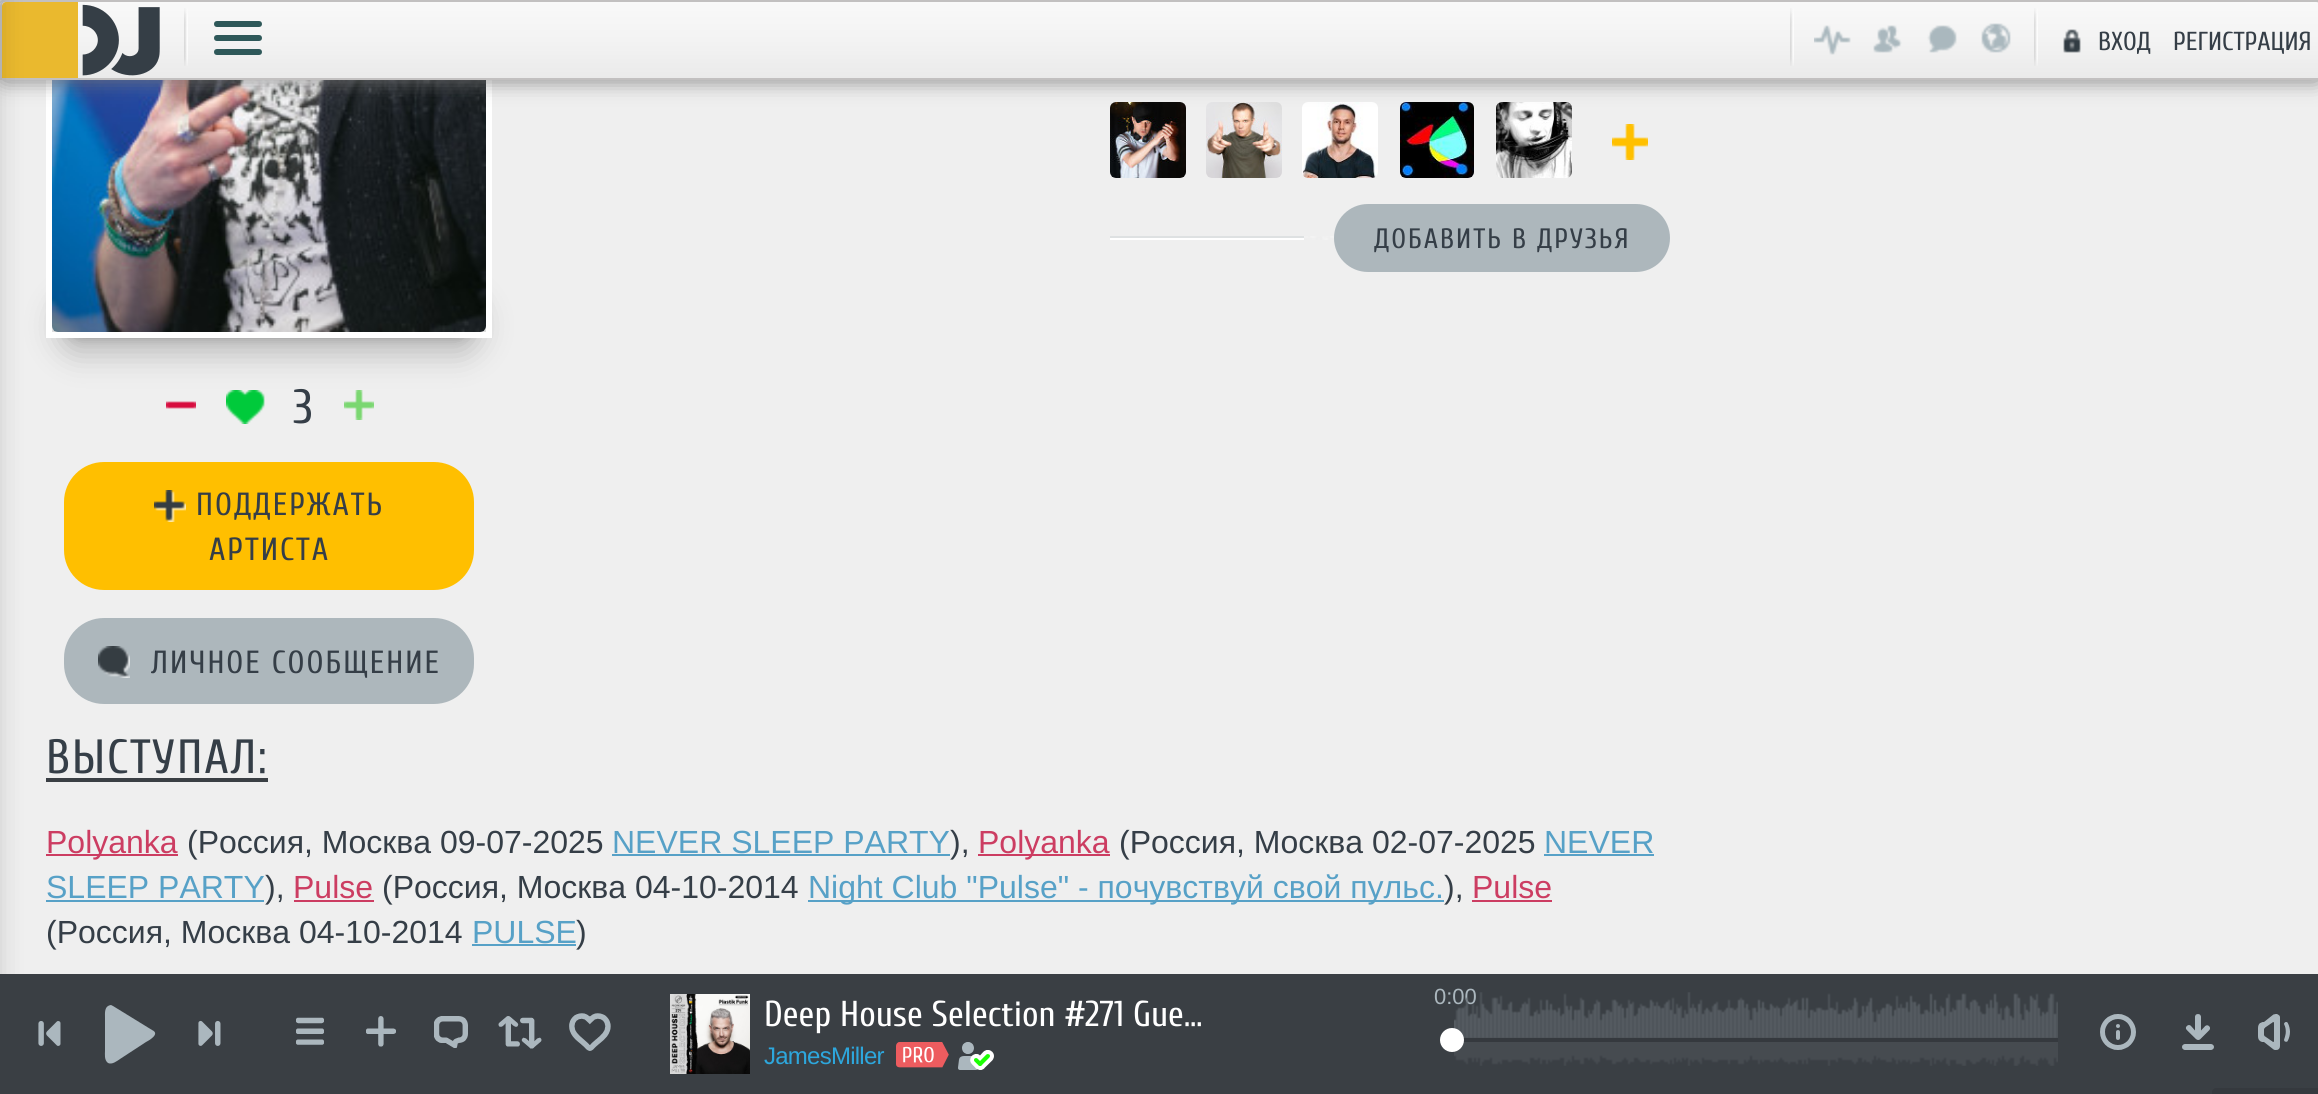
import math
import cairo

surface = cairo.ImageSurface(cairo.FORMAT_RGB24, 2318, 1094)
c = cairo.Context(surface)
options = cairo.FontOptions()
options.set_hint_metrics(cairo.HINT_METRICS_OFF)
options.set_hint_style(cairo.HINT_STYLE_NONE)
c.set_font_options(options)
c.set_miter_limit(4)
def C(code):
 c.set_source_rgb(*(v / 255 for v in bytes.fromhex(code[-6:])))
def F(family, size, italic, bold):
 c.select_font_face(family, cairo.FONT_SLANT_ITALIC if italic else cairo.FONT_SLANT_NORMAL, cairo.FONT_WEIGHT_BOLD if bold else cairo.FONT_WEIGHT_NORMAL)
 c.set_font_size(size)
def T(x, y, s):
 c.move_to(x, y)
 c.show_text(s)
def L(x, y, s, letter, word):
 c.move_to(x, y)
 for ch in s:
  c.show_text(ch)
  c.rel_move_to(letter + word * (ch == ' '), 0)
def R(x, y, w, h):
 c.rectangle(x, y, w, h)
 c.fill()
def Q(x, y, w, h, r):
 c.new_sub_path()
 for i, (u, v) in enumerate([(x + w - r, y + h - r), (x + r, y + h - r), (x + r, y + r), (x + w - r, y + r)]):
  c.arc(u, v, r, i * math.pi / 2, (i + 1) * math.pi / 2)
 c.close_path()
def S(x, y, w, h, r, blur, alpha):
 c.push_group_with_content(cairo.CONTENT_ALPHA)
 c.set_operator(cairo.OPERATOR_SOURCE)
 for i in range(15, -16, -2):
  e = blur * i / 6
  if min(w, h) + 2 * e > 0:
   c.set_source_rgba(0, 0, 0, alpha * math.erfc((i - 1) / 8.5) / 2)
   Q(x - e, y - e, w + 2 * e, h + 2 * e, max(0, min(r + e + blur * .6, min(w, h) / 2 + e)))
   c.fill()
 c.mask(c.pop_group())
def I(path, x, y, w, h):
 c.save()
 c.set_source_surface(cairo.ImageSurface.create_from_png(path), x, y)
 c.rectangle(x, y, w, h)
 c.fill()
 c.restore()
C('efefef')
c.paint()
I('9.png',1110,102,76,76)
I('10.png',1206,102,76,76)
I('11.png',1302,102,76,76)
I('12.png',1400,102,74,76)
I('13.png',1496,102,76,76)
C('000000')
S(56,276,426,60,38,6,.3)
S(56,296,426,60,38,15,.2)
c.rectangle(49,-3,440,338)
C('ffffff')
c.set_line_width(6)
c.stroke()
I('16.png',52,80,434,252)
C('777777')
S(-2,-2,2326,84,8,10,.8)
c.save()
c.new_path()
c.move_to(6,0)
c.line_to(2316,0)
c.curve_to(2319.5,0,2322,2.5,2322,6)
c.line_to(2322,80)
c.line_to(0,80)
c.line_to(0,6)
c.curve_to(0,2.5,2.5,0,6,0)
c.close_path()
c.clip()
gradient = cairo.LinearGradient(1161,2,1161,78)
gradient.add_color_stop_rgba(0,0.976,0.976,0.976,1)
gradient.add_color_stop_rgba(.5,0.953,0.953,0.953,1)
gradient.add_color_stop_rgba(1,0.918,0.918,0.918,1)
c.set_source(gradient)
R(0,2,2318,76)
c.restore()
c.new_path()
c.move_to(6,1)
c.line_to(2316,1)
c.curve_to(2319,1,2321,3,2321,6)
c.line_to(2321,79)
c.line_to(1,79)
c.line_to(1,6)
c.curve_to(1,3,3,1,6,1)
c.close_path()
C('c2c0c0')
c.set_line_width(2)
c.stroke()
C('eab92e')
c.new_path()
c.move_to(6,2)
c.line_to(78,2)
c.line_to(78,78)
c.line_to(2,78)
c.line_to(2,6)
c.curve_to(2,4,4,2,6,2)
c.close_path()
c.fill()
C('000000')
S(-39,0,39,1094,0,13,.15)
I('1.png',82,4,78,72)
I('2.png',184,8,4,58)
I('3.png',214,21,48,34)
I('2.png',1790,8,4,58)
I('4.png',1814,25,37,30)
I('5.png',1873,25,29,28)
I('6.png',1927,25,30,28)
I('7.png',1981,23,30,30)
I('2.png',2034,8,4,58)
I('8.png',2063,29,18,24)
F('Cuprum',26,0,0)
C('353e47')
T(2098,50,'ВХОД')
T(2173,50,'РЕГИСТРАЦИЯ')
I('14.png',1612,124,36,36)
C('dee1e2')
R(1110,236,194,2)
C('ffffff')
R(1110,238,194,2)
I('15.png',1304,236,366,4)
C('adb7bc')
Q(1334,204,336,68,34)
c.fill()
F('Cuprum',28,0,0)
C('353e47')
L(1374,248,'ДОБАВИТЬ В ДРУЗЬЯ',2,0)
I('17.png',166,401,30,8)
I('18.png',226,390,39,34)
F('Cuprum',48,0,0)
T(293,423,'3')
I('19.png',344,390,30,30)
C('ffbf00')
Q(64,462,410,128,40)
c.fill()
I('20.png',154,490,32,32)
F('Cuprum',32,0,0)
C('353e47')
L(196,515,'ПОДДЕРЖАТЬ',2,0)
L(209,560,'АРТИСТА',2,0)
C('adb7bc')
Q(64,618,410,86,40)
c.fill()
I('21.png',98,646,32,32)
C('353e47')
L(151,673,'ЛИЧНОЕ СООБЩЕНИЕ',2,0)
F('Cuprum',48,0,0)
L(46,773,'ВЫСТУПАЛ:',2,0)
C('3a3f44')
R(46,778,222,4)
C('cc3d62')
R(46,854,132,2)
F('Liberation Sans',32,0,0)
T(46,853,'Polyanka')
C('353e47')
T(187,853,'(Россия, Москва 09-07-2025')
C('57a1c7')
T(612,853,'NEVER SLEEP PARTY')
R(612,854,338,2)
C('353e47')
T(950,853,'),')
C('cc3d62')
R(978,854,132,2)
T(978,853,'Polyanka')
C('353e47')
T(1119,853,'(Россия, Москва 02-07-2025')
C('57a1c7')
T(1544,853,'NEVER')
R(1544,854,110,2)
T(46,898,'SLEEP PARTY')
R(46,900,218,2)
C('353e47')
T(265,898,'),')
C('cc3d62')
T(293,898,'Pulse')
R(294,900,80,2)
C('353e47')
T(382,898,'(Россия, Москва 04-10-2014')
C('57a1c7')
R(808,900,636,2)
T(808,898,'Night Club "Pulse" - почувствуй свой пульс.')
C('353e47')
T(1444,898,'),')
C('cc3d62')
T(1472,898,'Pulse')
R(1472,900,80,2)
C('353e47')
T(46,943,'(Россия, Москва 04-10-2014')
C('57a1c7')
T(472,943,'PULSE')
R(472,944,104,2)
C('353e47')
T(576,943,')')
C('3a3f44')
R(0,974,2318,120)
F('Liberation Sans',22,0,0)
C('abb7be')
T(1434,1004,'0:00')
I('22.png',1454,992,604,74)
C('35393e')
R(1463,1038,595,4)
C('ffffff')
c.arc(1452,1040,12,0,2 * math.pi)
c.fill()
I('23.png',38,1021,23,25)
C('abb7be')
c.new_path()
c.move_to(152,1030)
c.line_to(113,1006)
c.line_to(111,1005)
c.curve_to(104,1006,105,1013,105,1018)
c.line_to(105,1051)
c.curve_to(105,1054,104,1060,108,1063)
c.curve_to(112,1065,117,1061,120,1059)
c.line_to(146,1042)
c.curve_to(148,1041,161,1034,152,1030)
c.close_path()
c.fill()
I('24.png',198,1020,23,26)
I('25.png',296,1017,28,28)
I('26.png',366,1016,30,31)
I('27.png',434,1016,34,32)
I('28.png',498,1016,44,33)
I('29.png',569,1013,42,38)
I('30.png',670,994,80,80)
F('Cuprum',36,0,0)
C('ffffff')
T(764,1026,'Deep House Selection #271 Gue…')
F('Liberation Sans',24,0,0)
C('2da7dd')
L(764,1064,'JamesMiller',-.75,0)
I('31.png',896,1042,53,26)
I('32.png',958,1042,36,28)
I('33.png',2100,1014,36,36)
I('34.png',2182,1014,32,36)
I('35.png',2258,1014,32,36)
C('35393e')
c.new_path()
c.move_to(2216,1088)
c.line_to(2318,1088)
c.curve_to(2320,1088,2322,1090,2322,1092)
c.line_to(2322,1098)
c.line_to(2212,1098)
c.line_to(2212,1092)
c.curve_to(2212,1090,2214,1088,2216,1088)
c.close_path()
c.fill()
surface.write_to_png('o.png')
